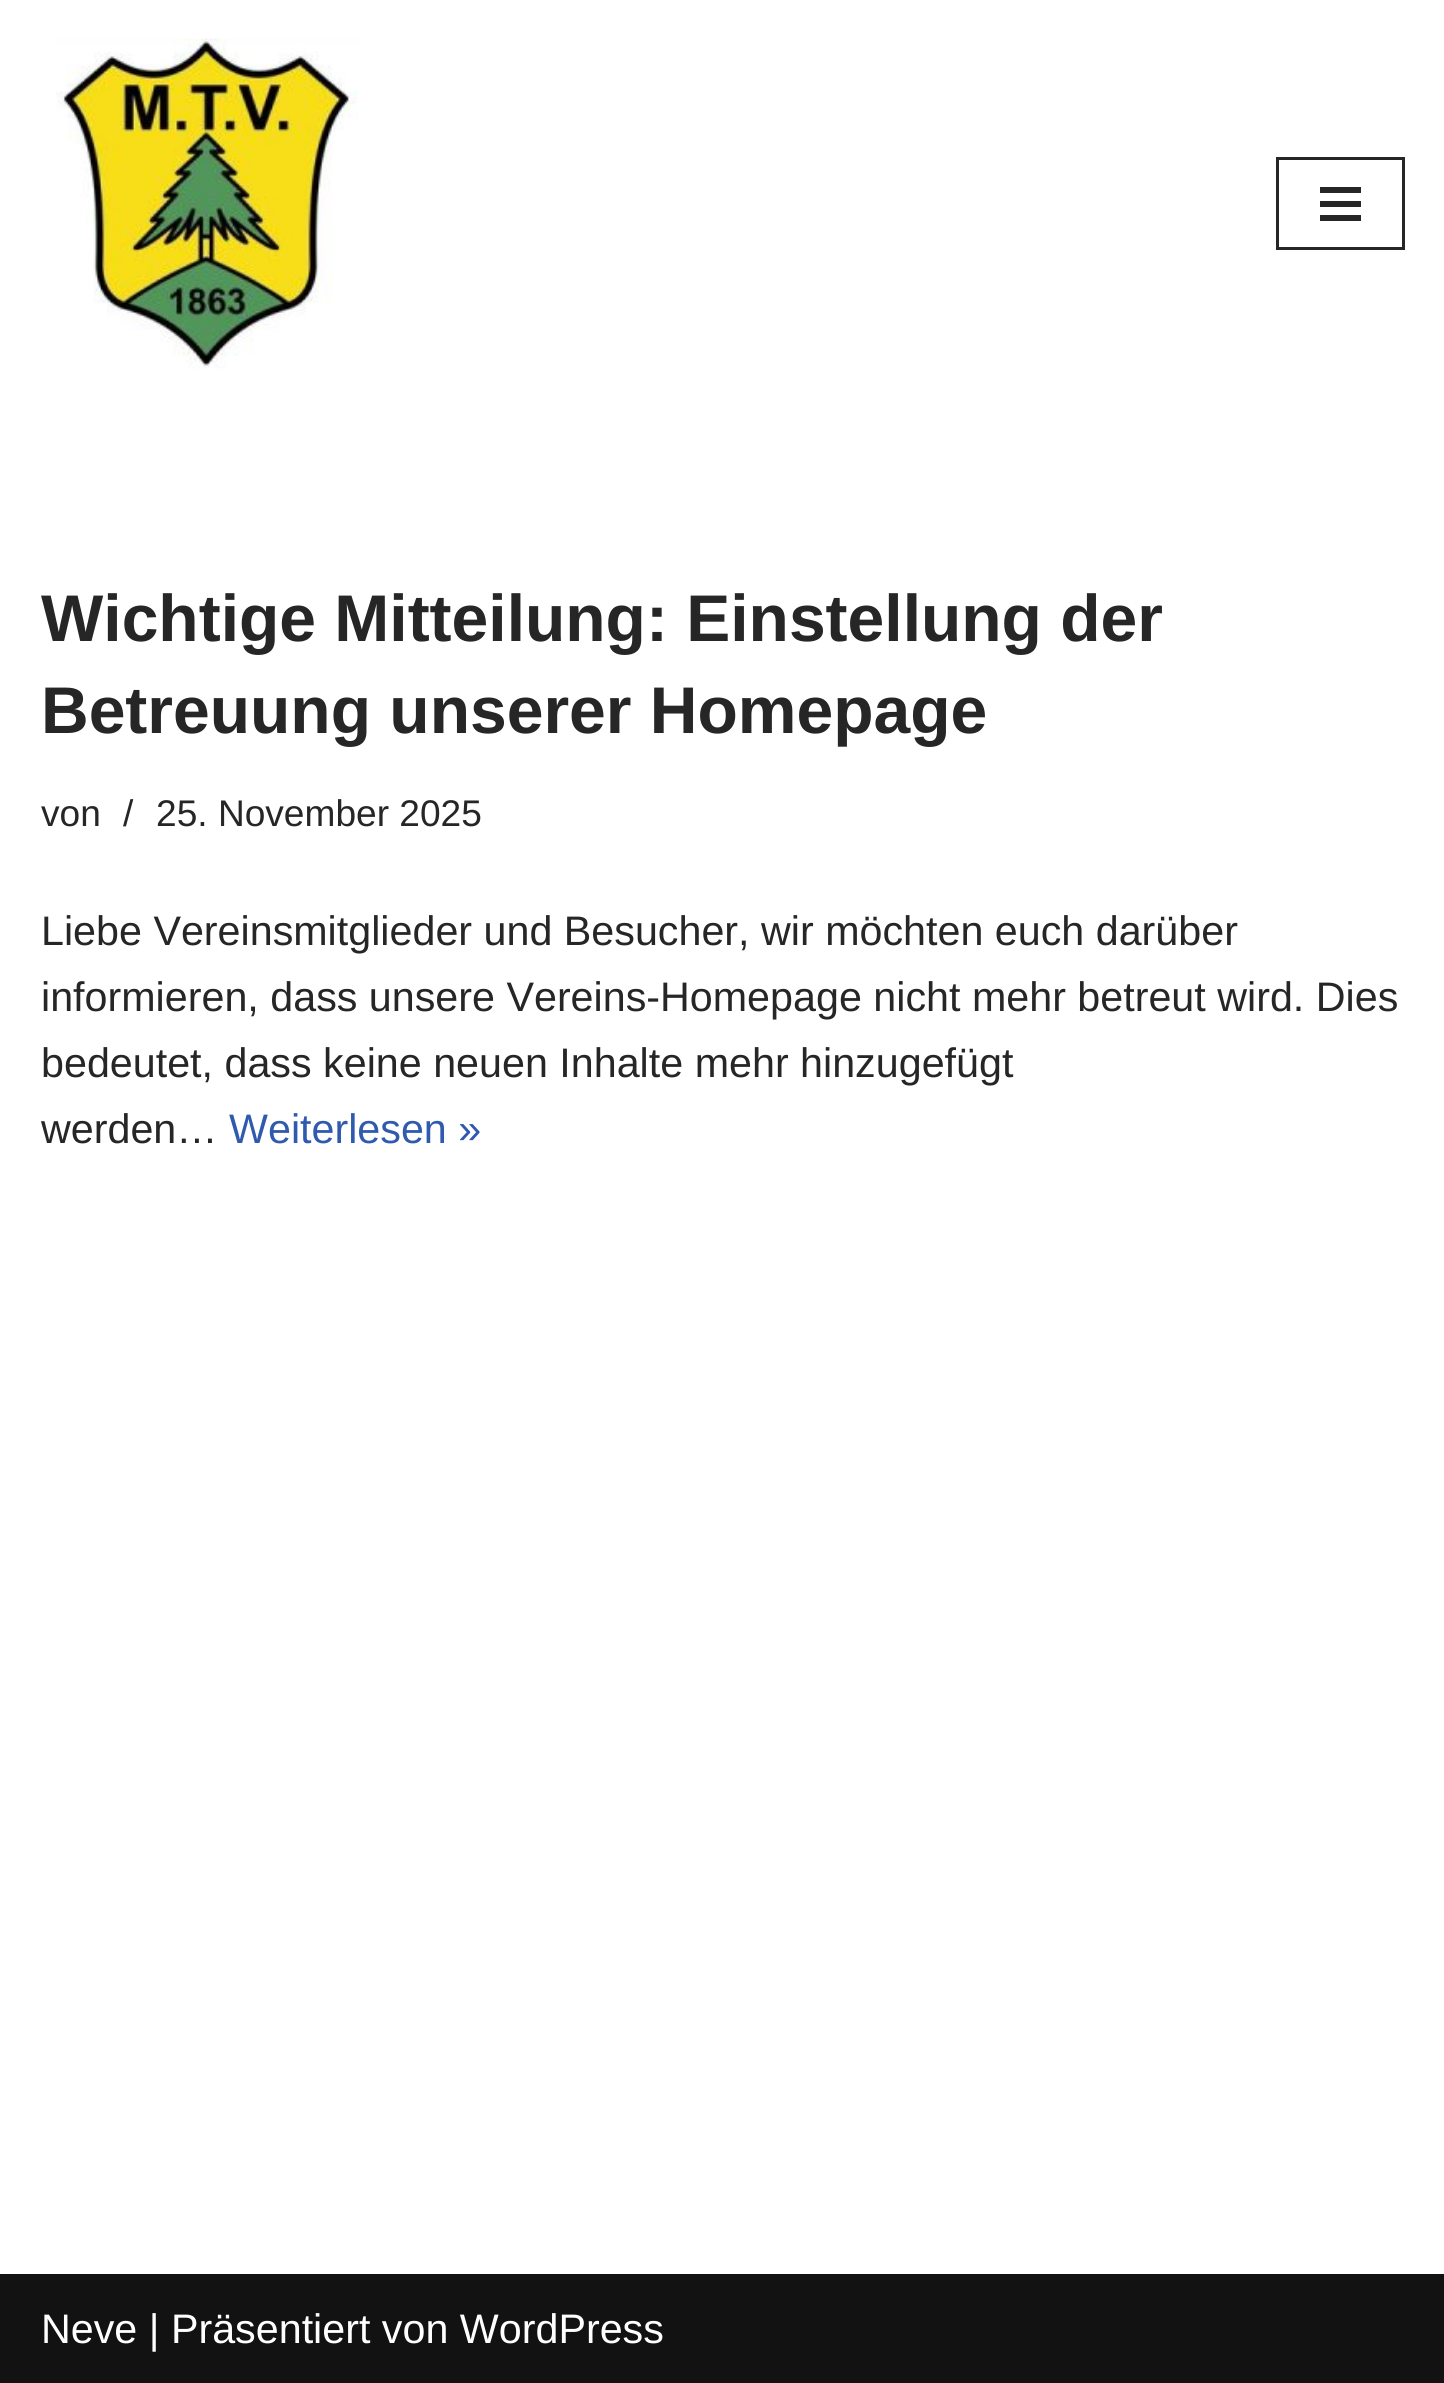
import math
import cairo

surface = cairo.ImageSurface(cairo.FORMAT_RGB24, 1444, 2383)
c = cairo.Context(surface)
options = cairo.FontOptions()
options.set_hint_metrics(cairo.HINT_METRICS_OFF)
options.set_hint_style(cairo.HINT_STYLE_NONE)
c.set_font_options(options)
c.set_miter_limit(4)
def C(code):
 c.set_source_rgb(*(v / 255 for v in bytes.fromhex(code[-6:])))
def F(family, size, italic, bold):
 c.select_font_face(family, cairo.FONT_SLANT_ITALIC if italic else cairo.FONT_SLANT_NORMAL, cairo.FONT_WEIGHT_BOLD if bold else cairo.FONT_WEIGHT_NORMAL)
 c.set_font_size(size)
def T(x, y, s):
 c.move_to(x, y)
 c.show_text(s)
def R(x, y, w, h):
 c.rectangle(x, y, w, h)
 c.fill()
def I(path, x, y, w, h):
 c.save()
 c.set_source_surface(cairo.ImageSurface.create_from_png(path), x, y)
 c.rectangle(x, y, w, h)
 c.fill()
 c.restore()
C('ffffff')
c.paint()
I('1.png',56,38,303,331)
c.rectangle(1277.5,158.5,126,90)
C('272626')
c.set_line_width(3)
c.stroke()
R(1320,187,41,6)
R(1320,201,41,6)
R(1320,215,41,6)
F('Liberation Sans',66,0,1)
T(41,641,'Wichtige Mitteilung: Einstellung der')
T(41,733,'Betreuung unserer Homepage')
F('Liberation Sans',37.1,0,0)
T(41,826,'von')
T(123,826,'/')
T(156,826,'25. November 2025')
F('Liberation Sans',41.25,0,0)
T(41,945,'Liebe Vereinsmitglieder und Besucher, wir möchten euch darüber')
T(41,1011,'informieren, dass unsere Vereins-Homepage nicht mehr betreut wird. Dies')
T(41,1077,'bedeutet, dass keine neuen Inhalte mehr hinzugefügt')
T(41,1143,'werden…')
C('2f5aae')
T(229,1143,'Weiterlesen »')
C('121212')
R(0,2274,1444,109)
C('ffffff')
T(41,2343,'Neve | Präsentiert von WordPress')
surface.write_to_png('o.png')
